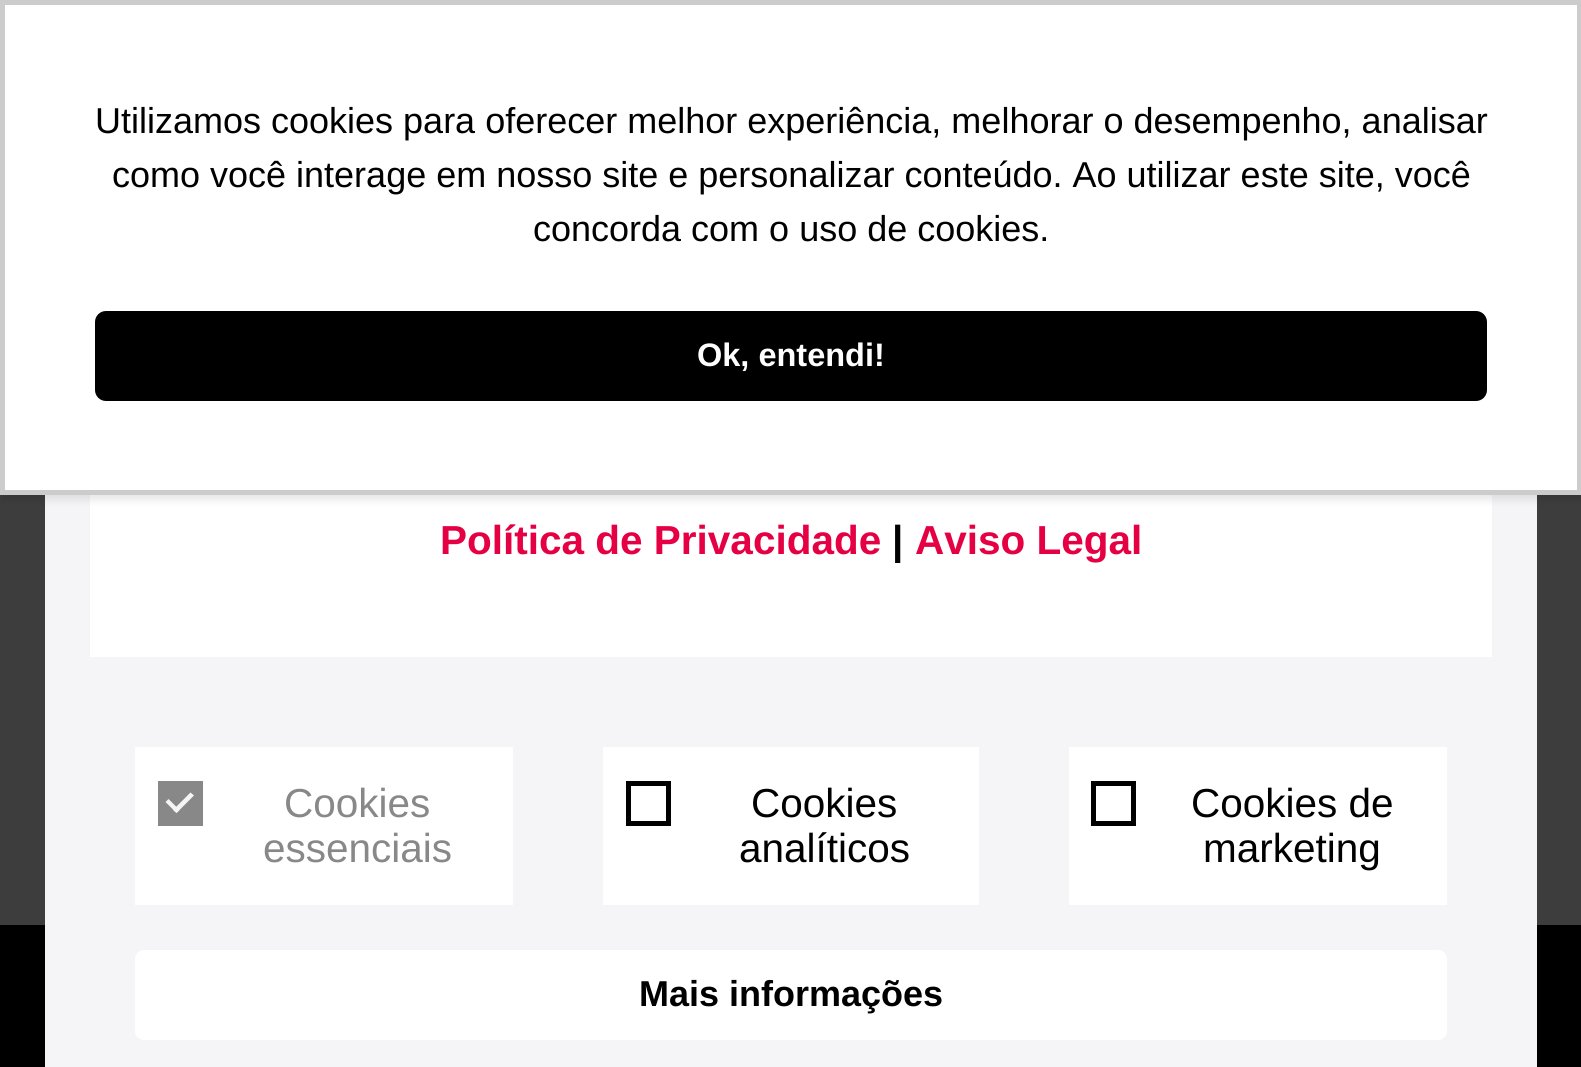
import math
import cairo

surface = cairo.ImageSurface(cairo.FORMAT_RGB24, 1581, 1067)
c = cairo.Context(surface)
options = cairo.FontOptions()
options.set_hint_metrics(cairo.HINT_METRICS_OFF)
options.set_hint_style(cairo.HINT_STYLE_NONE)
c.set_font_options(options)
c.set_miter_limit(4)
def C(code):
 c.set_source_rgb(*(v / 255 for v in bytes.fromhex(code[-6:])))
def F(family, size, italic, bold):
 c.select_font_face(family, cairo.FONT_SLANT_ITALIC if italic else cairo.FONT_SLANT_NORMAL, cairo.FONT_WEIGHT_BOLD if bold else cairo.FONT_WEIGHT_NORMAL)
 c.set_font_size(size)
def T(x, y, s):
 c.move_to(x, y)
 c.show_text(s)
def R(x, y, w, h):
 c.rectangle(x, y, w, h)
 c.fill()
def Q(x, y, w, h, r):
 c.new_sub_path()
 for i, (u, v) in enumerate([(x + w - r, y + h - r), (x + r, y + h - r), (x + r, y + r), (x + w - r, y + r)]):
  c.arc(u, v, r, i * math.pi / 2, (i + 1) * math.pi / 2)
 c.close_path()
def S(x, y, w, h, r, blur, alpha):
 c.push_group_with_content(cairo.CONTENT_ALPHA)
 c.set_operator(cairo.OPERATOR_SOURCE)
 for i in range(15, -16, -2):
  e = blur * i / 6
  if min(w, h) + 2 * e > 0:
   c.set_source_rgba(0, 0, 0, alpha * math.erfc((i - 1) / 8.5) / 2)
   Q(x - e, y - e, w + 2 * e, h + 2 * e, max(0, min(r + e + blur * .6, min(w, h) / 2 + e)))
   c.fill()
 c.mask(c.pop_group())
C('3d3d3e')
c.paint()
C('000000')
R(0,925,1581,142)
C('f5f5f7')
R(45,495,1492,572)
C('ffffff')
R(90,495,1402,162)
C('000000')
S(2,5,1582,495,0,4.5,.1)
C('ffffff')
c.rectangle(2.5,2.5,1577,490)
c.fill_preserve()
C('cccccc')
c.set_line_width(5)
c.stroke()
F('Liberation Sans',36,0,0)
C('000000')
T(95,133,'Utilizamos cookies para oferecer melhor experiência, melhorar o desempenho, analisar')
T(112,187,'como você interage em nosso site e personalizar conteúdo. Ao utilizar este site, você')
T(533,241,'concorda com o uso de cookies.')
Q(95,311,1392,90,11)
c.fill()
F('Liberation Sans',32.5,0,1)
C('ffffff')
T(697,366,'Ok, entendi!')
F('Liberation Sans',40.5,0,1)
C('e50043')
T(440,554,'Política de Privacidade')
C('000000')
T(892,554,'|')
C('e50043')
T(915,554,'Aviso Legal')
C('ffffff')
R(135,747,378,158)
C('888888')
R(158,781,45,45)
C('f5f5f7')
c.new_path()
c.move_to(173,810)
c.line_to(190.5,792.5)
c.line_to(194,795.5)
c.line_to(176.5,813)
c.close_path()
c.fill()
c.new_path()
c.move_to(165.5,802)
c.line_to(168.5,799)
c.line_to(179.5,810)
c.line_to(176.5,813)
c.close_path()
c.fill()
F('Liberation Sans',40.5,0,0)
C('888888')
T(284,817,'Cookies')
T(263,862,'essenciais')
C('ffffff')
R(603,747,376,158)
c.rectangle(628.5,783.5,40,40)
C('000000')
c.stroke()
T(751,817,'Cookies')
T(739,862,'analíticos')
C('ffffff')
R(1069,747,378,158)
c.rectangle(1093.5,783.5,40,40)
C('000000')
c.stroke()
T(1191,817,'Cookies de')
T(1203,862,'marketing')
C('ffffff')
Q(135,950,1312,90,9)
c.fill()
F('Liberation Sans',36,0,1)
C('000000')
T(639,1006,'Mais informações')
surface.write_to_png('o.png')
